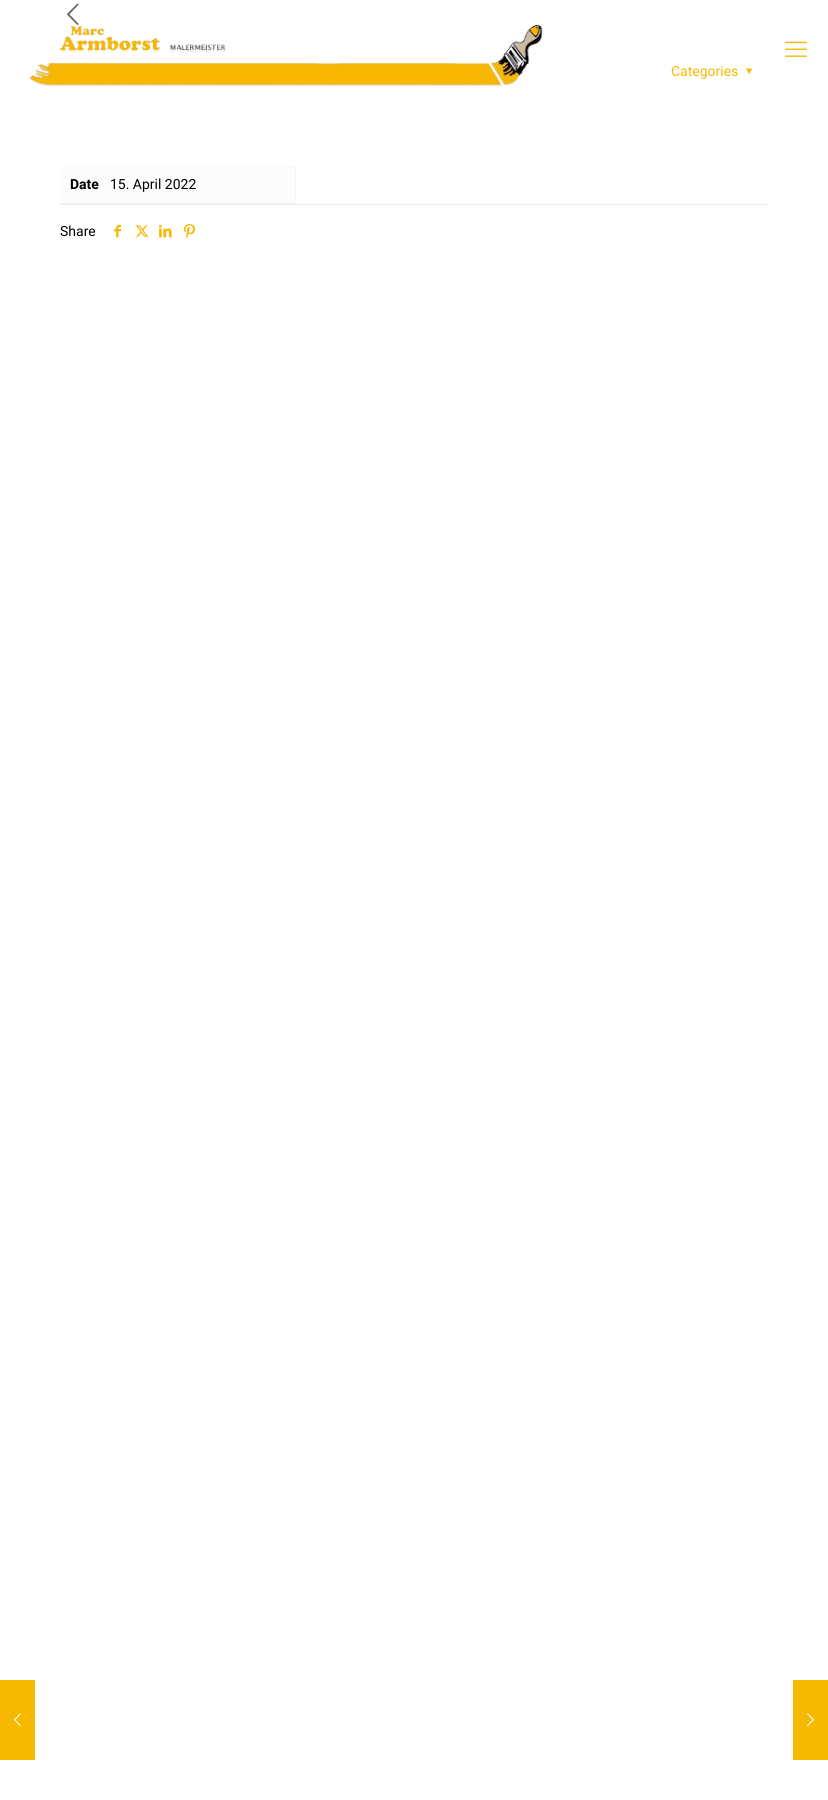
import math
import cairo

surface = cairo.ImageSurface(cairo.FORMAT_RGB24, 828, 1800)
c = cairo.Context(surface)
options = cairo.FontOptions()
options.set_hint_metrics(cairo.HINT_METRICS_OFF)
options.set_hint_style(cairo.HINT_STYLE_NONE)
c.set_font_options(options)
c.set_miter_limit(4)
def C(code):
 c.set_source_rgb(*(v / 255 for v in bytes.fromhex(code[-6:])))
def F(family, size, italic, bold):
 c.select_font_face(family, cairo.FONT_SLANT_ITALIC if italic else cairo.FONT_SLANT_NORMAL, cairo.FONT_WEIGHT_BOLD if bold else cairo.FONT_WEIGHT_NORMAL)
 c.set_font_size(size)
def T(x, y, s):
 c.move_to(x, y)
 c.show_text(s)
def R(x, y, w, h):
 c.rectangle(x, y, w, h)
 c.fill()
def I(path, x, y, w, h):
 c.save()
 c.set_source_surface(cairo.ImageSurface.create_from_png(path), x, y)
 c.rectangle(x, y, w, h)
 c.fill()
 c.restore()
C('ffffff')
c.paint()
I('1.png',29,25,514,62)
I('2.png',785,41,22,16)
I('3.png',67,3,12,22)
F('Roboto',14,0,0)
C('f6b900')
T(671,76,'Categories')
c.new_path()
c.move_to(752.5,68.5)
c.line_to(749,74)
c.line_to(746,68.5)
c.close_path()
c.fill()
C('fcfcfc')
R(60,166,236,38)
C('f4f4f4')
c.new_path()
c.move_to(296,166)
c.line_to(296,204)
c.line_to(295,203)
c.line_to(295,166)
c.close_path()
c.fill()
c.set_source_rgba(0,0,0,0.03)
c.new_path()
c.move_to(296,204)
c.line_to(60,204)
c.line_to(60,203)
c.line_to(295,203)
c.close_path()
c.fill()
F('Roboto',14,0,1)
C('000000')
T(70,189,'Date')
F('Roboto',14,0,0)
T(110,189,'15. April 2022')
C('ebebeb')
R(60,204,708,1)
C('000000')
T(60,236,'Share')
I('4.png',114,224,7,14)
I('5.png',135,225,14,12)
I('6.png',159,224,13,14)
I('7.png',184,224,11,14)
C('f6b900')
R(0,1680,35,80)
I('8.png',14,1713,7,14)
R(793,1680,35,80)
I('9.png',807,1713,7,14)
surface.write_to_png('o.png')
